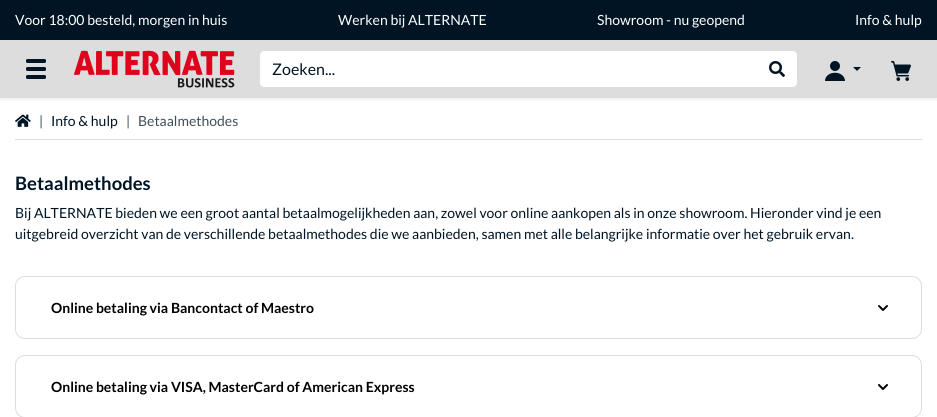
import math
import cairo

surface = cairo.ImageSurface(cairo.FORMAT_RGB24, 937, 417)
c = cairo.Context(surface)
options = cairo.FontOptions()
options.set_hint_metrics(cairo.HINT_METRICS_OFF)
options.set_hint_style(cairo.HINT_STYLE_NONE)
c.set_font_options(options)
c.set_miter_limit(4)
def C(code):
 c.set_source_rgb(*(v / 255 for v in bytes.fromhex(code[-6:])))
def F(family, size, italic, bold):
 c.select_font_face(family, cairo.FONT_SLANT_ITALIC if italic else cairo.FONT_SLANT_NORMAL, cairo.FONT_WEIGHT_BOLD if bold else cairo.FONT_WEIGHT_NORMAL)
 c.set_font_size(size)
def T(x, y, s):
 c.move_to(x, y)
 c.show_text(s)
def R(x, y, w, h):
 c.rectangle(x, y, w, h)
 c.fill()
def Q(x, y, w, h, r):
 c.new_sub_path()
 for i, (u, v) in enumerate([(x + w - r, y + h - r), (x + r, y + h - r), (x + r, y + r), (x + w - r, y + r)]):
  c.arc(u, v, r, i * math.pi / 2, (i + 1) * math.pi / 2)
 c.close_path()
def S(x, y, w, h, r, blur, alpha):
 c.push_group_with_content(cairo.CONTENT_ALPHA)
 c.set_operator(cairo.OPERATOR_SOURCE)
 for i in range(15, -16, -2):
  e = blur * i / 6
  if min(w, h) + 2 * e > 0:
   c.set_source_rgba(0, 0, 0, alpha * math.erfc((i - 1) / 8.5) / 2)
   Q(x - e, y - e, w + 2 * e, h + 2 * e, max(0, min(r + e + blur * .6, min(w, h) / 2 + e)))
   c.fill()
 c.mask(c.pop_group())
def I(path, x, y, w, h):
 c.save()
 c.set_source_surface(cairo.ImageSurface.create_from_png(path), x, y)
 c.rectangle(x, y, w, h)
 c.fill()
 c.restore()
C('ffffff')
c.paint()
C('001424')
R(0,0,937,40)
F('Lato',14,0,0)
C('ffffff')
T(15,25,'Voor 18:00 besteld, morgen in huis')
T(338,25,'Werken bij ALTERNATE')
T(597,25,'Showroom - nu geopend')
T(855,25,'Info & hulp')
C('dddddd')
R(0,40,937,58)
c.save()
c.rectangle(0,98,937,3)
c.clip()
C('000000')
S(0,42,937,58,0,2,.07)
c.restore()
C('001424')
Q(26,59,20,4,1.5)
c.fill()
Q(26,67,20,4,1.5)
c.fill()
Q(26,75,20,4,1.5)
c.fill()
I('1.png',73,50,162,38)
C('ffffff')
c.new_path()
c.move_to(264,51)
c.line_to(757,51)
c.line_to(757,87)
c.line_to(264,87)
c.curve_to(262,87,260,85,260,83)
c.line_to(260,55)
c.curve_to(260,53,262,51,264,51)
c.close_path()
c.fill()
F('Lato',16,0,0)
C('001424')
T(272,75,'Zoeken...')
C('ffffff')
c.new_path()
c.move_to(757,51)
c.line_to(793,51)
c.curve_to(795,51,797,53,797,55)
c.line_to(797,83)
c.curve_to(797,85,795,87,793,87)
c.line_to(757,87)
c.close_path()
c.fill()
I('2.png',769,61,16,16)
I('3.png',825,61,20,20)
C('001424')
c.new_path()
c.move_to(853,67)
c.line_to(861,67)
c.line_to(857,71)
c.close_path()
c.fill()
I('4.png',891,61,20,20)
C('dddddd')
R(15,139,907,1)
I('5.png',15,114,16,13)
F('Lato',14,0,0)
C('404f5b')
T(39,126,'|')
C('001424')
T(51,126,'Info & hulp')
C('404f5b')
T(126,126,'|')
T(138,126,'Betaalmethodes')
F('Lato',18.5,0,1)
C('001424')
T(15,190,'Betaalmethodes')
F('Lato',14,0,0)
T(15,218,'Bij ALTERNATE bieden we een groot aantal betaalmogelijkheden aan, zowel voor online aankopen als in onze showroom. Hieronder vind je een')
T(15,239,'uitgebreid overzicht van de verschillende betaalmethodes die we aanbieden, samen met alle belangrijke informatie over het gebruik ervan.')
Q(15.5,276.5,906,62,9.5)
C('dddddd')
c.set_line_width(1)
c.stroke()
F('Lato',14,0,1)
C('000000')
T(51,313,'Online betaling via Bancontact of Maestro')
c.new_path()
c.move_to(879,306)
c.line_to(883,310)
c.line_to(887,306)
c.set_line_width(2)
c.set_line_cap(cairo.LINE_CAP_ROUND)
c.set_line_join(cairo.LINE_JOIN_ROUND)
c.stroke()
Q(15.5,355.5,906,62,9.5)
C('dddddd')
c.set_line_width(1)
c.set_line_cap(cairo.LINE_CAP_BUTT)
c.set_line_join(cairo.LINE_JOIN_MITER)
c.stroke()
C('000000')
T(51,392,'Online betaling via VISA, MasterCard of American Express')
c.new_path()
c.move_to(879,385)
c.line_to(883,389)
c.line_to(887,385)
c.set_line_width(2)
c.set_line_cap(cairo.LINE_CAP_ROUND)
c.set_line_join(cairo.LINE_JOIN_ROUND)
c.stroke()
surface.write_to_png('o.png')
